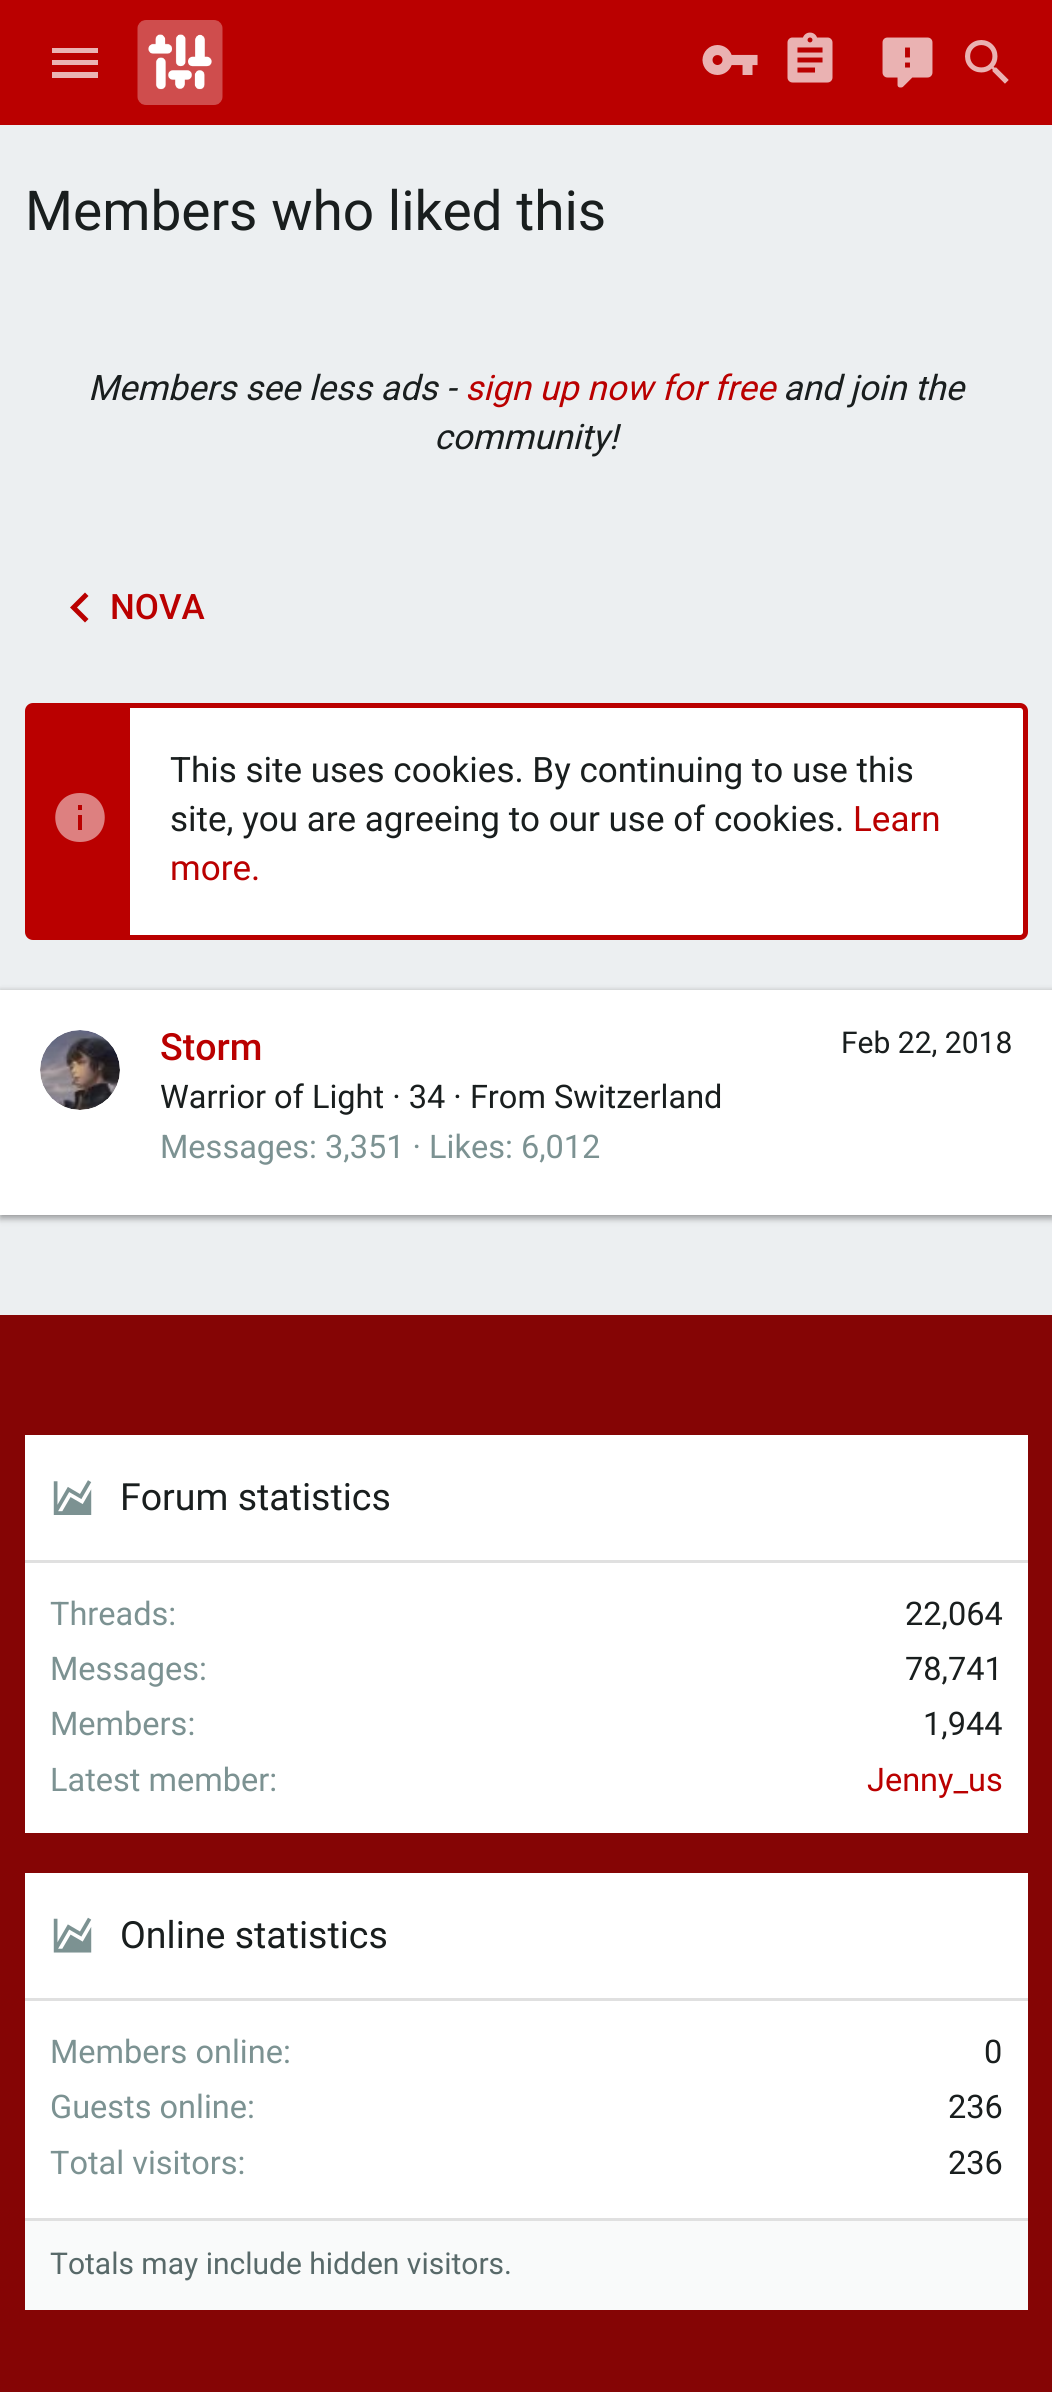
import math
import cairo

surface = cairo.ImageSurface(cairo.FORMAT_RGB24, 1052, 2392)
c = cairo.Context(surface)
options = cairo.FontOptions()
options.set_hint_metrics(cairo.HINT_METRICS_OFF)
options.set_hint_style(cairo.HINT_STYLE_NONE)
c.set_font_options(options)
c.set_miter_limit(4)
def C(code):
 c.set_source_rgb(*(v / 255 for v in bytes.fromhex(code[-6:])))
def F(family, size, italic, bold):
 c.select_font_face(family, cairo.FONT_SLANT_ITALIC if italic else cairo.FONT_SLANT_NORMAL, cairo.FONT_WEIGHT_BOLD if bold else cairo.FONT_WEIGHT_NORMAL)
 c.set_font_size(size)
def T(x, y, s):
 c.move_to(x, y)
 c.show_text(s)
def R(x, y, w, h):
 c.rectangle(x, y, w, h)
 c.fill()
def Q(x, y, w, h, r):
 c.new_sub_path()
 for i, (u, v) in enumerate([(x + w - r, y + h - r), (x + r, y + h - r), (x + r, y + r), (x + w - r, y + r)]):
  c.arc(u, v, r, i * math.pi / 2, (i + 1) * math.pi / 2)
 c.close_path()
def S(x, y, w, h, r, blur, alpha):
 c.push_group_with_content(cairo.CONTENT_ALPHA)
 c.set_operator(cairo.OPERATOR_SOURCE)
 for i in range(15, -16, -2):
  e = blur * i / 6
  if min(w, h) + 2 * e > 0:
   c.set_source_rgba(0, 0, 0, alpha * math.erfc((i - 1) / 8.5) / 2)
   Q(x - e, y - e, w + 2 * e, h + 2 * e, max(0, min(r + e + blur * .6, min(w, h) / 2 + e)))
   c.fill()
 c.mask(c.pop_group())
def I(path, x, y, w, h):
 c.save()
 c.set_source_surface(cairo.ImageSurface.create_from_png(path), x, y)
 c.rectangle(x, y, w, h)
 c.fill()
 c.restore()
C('eceff1')
c.paint()
C('ba0000')
R(0,0,1052,125)
C('eab3b3')
c.new_path()
c.move_to(52,48)
c.line_to(98,48)
c.line_to(98,53)
c.line_to(52,53)
c.close_path()
c.move_to(52,60)
c.line_to(98,60)
c.line_to(98,65)
c.line_to(52,65)
c.close_path()
c.move_to(52,72)
c.line_to(98,72)
c.line_to(98,78)
c.line_to(52,78)
c.close_path()
c.fill()
I('1.png',137,20,86,85)
I('2.png',702,45,56,30)
I('3.png',787,32,46,51)
I('4.png',882,37,51,51)
I('5.png',965,40,44,44)
F('Roboto',55,0,0)
C('191e1e')
T(25,230,'Members who liked this')
F('Roboto',35,1,0)
T(88,400,'Members see less ads -')
C('ba0000')
T(465,400,'sign up now for free')
C('191e1e')
T(783,400,'and join the')
T(434,449,'community!')
C('ba0000')
c.new_path()
c.move_to(88.5,619)
c.line_to(77,607.5)
c.line_to(88.5,596)
c.line_to(85,592.5)
c.line_to(70,607.5)
c.line_to(85,622.5)
c.close_path()
c.fill()
F('Roboto Medium',35,0,0)
T(110,619,'NOVA')
C('ffffff')
Q(27.5,705.5,998,232,5.5)
c.fill_preserve()
C('ba0000')
c.set_line_width(5)
c.stroke()
R(30,708,100,227)
C('dd8080')
c.new_path()
c.move_to(82,810)
c.line_to(78,810)
c.line_to(78,805)
c.line_to(82,805)
c.close_path()
c.move_to(82,830)
c.line_to(78,830)
c.line_to(78,815)
c.line_to(82,815)
c.close_path()
c.move_to(80,793)
c.curve_to(47,793,47,842,80,842)
c.curve_to(113,842,113,793,80,793)
c.close_path()
c.fill()
F('Roboto',35,0,0)
C('191e1e')
T(170,782,'This site uses cookies. By continuing to use this')
T(170,831,'site, you are agreeing to our use of cookies.')
C('ba0000')
T(853,831,'Learn')
T(170,880,'more.')
C('000000')
S(0,993,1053,225,0,4,.2)
S(0,995,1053,225,0,2.5,.12)
S(0,990,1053,225,0,2.5,.14)
C('ffffff')
R(0,990,1052,225)
I('6.png',40,1030,80,80)
F('Roboto Medium',37.5,0,0)
C('ba0000')
T(160,1060,'Storm')
F('Roboto',30,0,0)
C('191e1e')
T(841,1053,'Feb 22, 2018')
F('Roboto',32.5,0,0)
T(160,1108,'Warrior of Light · 34 · From Switzerland')
C('7c9292')
T(160,1158,'Messages: 3,351 · Likes: 6,012')
C('850505')
R(0,1315,1052,1077)
C('ffffff')
R(25,1435,1003,398)
C('e0e0e0')
R(25,1560,1003,3)
I('7.png',53,1480,39,35)
F('Roboto',37.5,0,0)
C('191e1e')
T(120,1510,'Forum statistics')
F('Roboto',32.5,0,0)
C('7c9292')
T(50,1625,'Threads:')
C('191e1e')
T(905,1625,'22,064')
C('7c9292')
T(50,1680,'Messages:')
C('191e1e')
T(905,1680,'78,741')
C('7c9292')
T(50,1735,'Members:')
C('191e1e')
T(923,1735,'1,944')
C('7c9292')
T(50,1791,'Latest member:')
C('ba0000')
T(867,1791,'Jenny_us')
C('ffffff')
R(25,1873,1003,345)
C('e0e0e0')
R(25,1998,1003,3)
I('8.png',53,1917,39,36)
F('Roboto',37.5,0,0)
C('191e1e')
T(120,1948,'Online statistics')
F('Roboto',32.5,0,0)
C('7c9292')
T(50,2063,'Members online:')
C('191e1e')
T(984,2063,'0')
C('7c9292')
T(50,2118,'Guests online:')
C('191e1e')
T(948,2118,'236')
C('7c9292')
T(50,2174,'Total visitors:')
C('191e1e')
T(948,2174,'236')
C('f9fafa')
R(25,2221,1003,89)
C('e0e0e0')
R(25,2218,1003,3)
F('Roboto',30,0,0)
C('586969')
T(50,2274,'Totals may include hidden visitors.')
surface.write_to_png('o.png')
